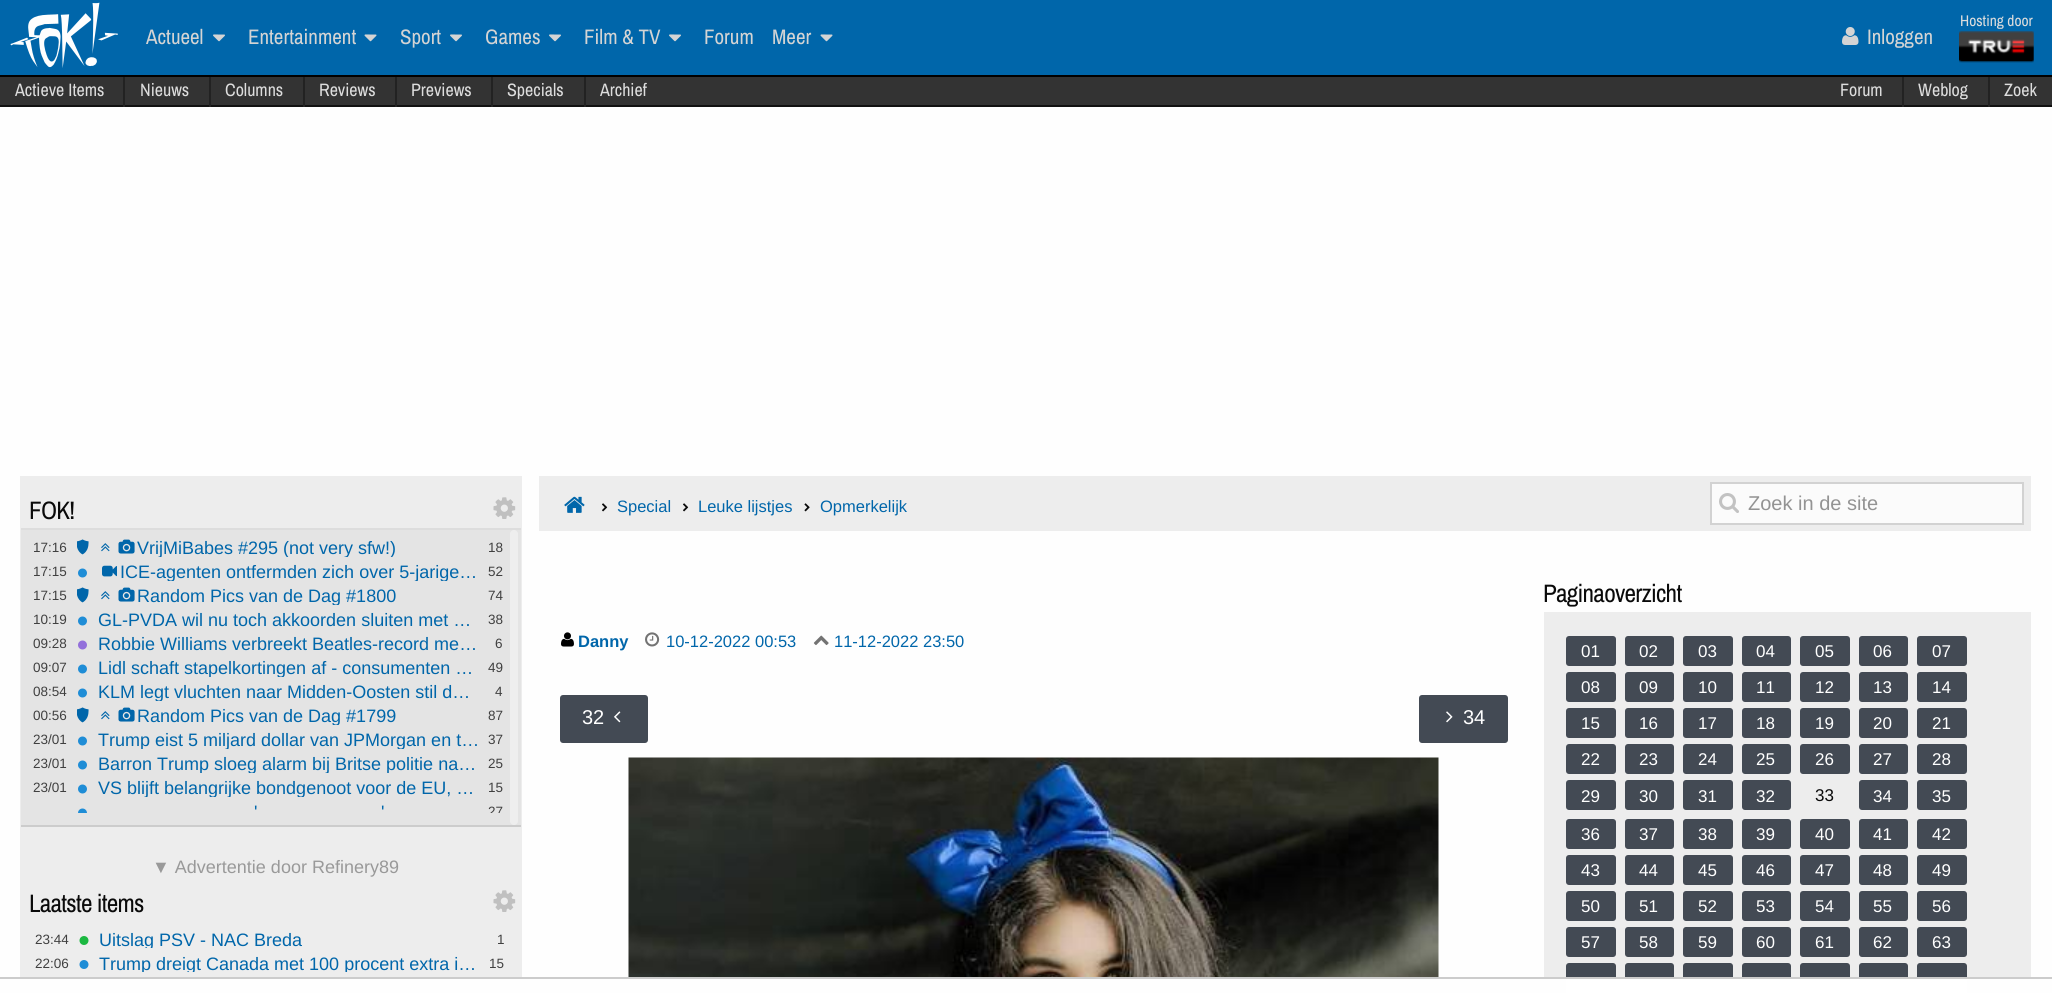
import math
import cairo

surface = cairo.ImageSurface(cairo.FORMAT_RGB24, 2052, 993)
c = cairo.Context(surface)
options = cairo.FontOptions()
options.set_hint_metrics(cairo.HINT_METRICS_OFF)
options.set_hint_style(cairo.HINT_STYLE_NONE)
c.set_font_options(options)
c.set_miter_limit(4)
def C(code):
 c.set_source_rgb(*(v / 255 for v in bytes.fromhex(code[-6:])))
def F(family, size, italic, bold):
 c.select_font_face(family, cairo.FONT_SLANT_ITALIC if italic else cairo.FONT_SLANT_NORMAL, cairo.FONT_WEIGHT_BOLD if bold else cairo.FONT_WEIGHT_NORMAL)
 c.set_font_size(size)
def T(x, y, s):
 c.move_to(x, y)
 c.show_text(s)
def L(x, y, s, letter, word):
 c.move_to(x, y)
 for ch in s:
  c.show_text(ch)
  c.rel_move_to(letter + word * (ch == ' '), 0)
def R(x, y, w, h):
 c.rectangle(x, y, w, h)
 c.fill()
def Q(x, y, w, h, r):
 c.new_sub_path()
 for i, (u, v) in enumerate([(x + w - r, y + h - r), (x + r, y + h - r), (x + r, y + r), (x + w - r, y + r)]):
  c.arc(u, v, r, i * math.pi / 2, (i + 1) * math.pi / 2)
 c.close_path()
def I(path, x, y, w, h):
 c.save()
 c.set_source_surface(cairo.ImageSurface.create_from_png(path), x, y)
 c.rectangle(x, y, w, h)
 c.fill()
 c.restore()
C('fefefe')
c.paint()
C('333333')
R(0,77,2052,28)
C('111111')
R(0,105,2052,2)
C('222222')
R(123,74,2,33)
R(209,74,2,33)
R(303,74,2,33)
R(395,74,2,33)
R(491,74,2,33)
R(584,74,2,33)
R(1902,74,2,33)
R(1988,74,2,33)
C('0066aa')
R(0,0,2052,75)
C('000000')
R(0,75,2052,2)
I('1.png',10,2,108,66)
F('Archivo Narrow',15.5,0,0)
C('dddddd')
T(1960,26,'Hosting door')
I('2.png',1959,31,75,32)
F('Archivo Narrow',21,0,0)
C('d4d4d4')
T(146,44,'Actueel')
I('3.png',213,34,12,8)
T(248,44,'Entertainment')
I('4.png',364,34,13,8)
T(400,44,'Sport')
I('3.png',450,34,12,8)
T(485,44,'Games')
I('3.png',549,34,12,8)
T(584,44,'Film & TV')
I('3.png',669,34,12,8)
T(704,44,'Forum')
T(772,44,'Meer')
I('4.png',820,34,13,8)
I('5.png',1842,27,17,18)
T(1867,44,'Inloggen')
F('Archivo Narrow',18,0,0)
C('dddddd')
T(15,96,'Actieve Items')
T(140,96,'Nieuws')
T(225,96,'Columns')
T(319,96,'Reviews')
T(411,96,'Previews')
T(507,96,'Specials')
T(600,96,'Archief')
T(1840,96,'Forum')
T(1918,96,'Weblog')
T(2004,96,'Zoek')
C('ededed')
R(20,476,502,501)
F('Archivo Narrow',25.25,0,0)
C('0a0a0a')
L(29,519,'FOK!',-.75,0)
I('6.png',493,497,23,22)
C('e4e4e4')
R(21,530,500,295)
C('dddddd')
R(21,528,500,2)
C('cccccc')
R(21,825,500,2)
F('Liberation Sans',13.5,0,0)
C('404040')
T(33,552,'17:16')
I('7.png',77,539,12,16)
I('8.png',101,543,9,9)
I('9.png',118,539,17,15)
c.save()
c.rectangle(77,539,402,18)
c.clip()
F('Liberation Sans',18,0,0)
C('0066aa')
T(137,554,'VrijMiBabes #295 (not very sfw!)')
c.restore()
T(488,552,'18')
T(33,576,'17:15')
I('10.png',78,568,9,10)
I('11.png',102,565,15,12)
c.save()
c.rectangle(77,563,402,18)
c.clip()
F('Liberation Sans',18,0,0)
C('0066aa')
T(120,578,'ICE-agenten ontfermden zich over 5-jarige…')
c.restore()
T(488,576,'52')
T(33,600,'17:15')
I('7.png',77,587,12,16)
I('8.png',101,591,9,9)
I('9.png',118,587,17,15)
c.save()
c.rectangle(77,587,402,18)
c.clip()
F('Liberation Sans',18,0,0)
C('0066aa')
T(137,602,'Random Pics van de Dag #1800')
c.restore()
T(488,600,'74')
T(33,624,'10:19')
I('10.png',78,616,9,10)
F('Liberation Sans',18,0,0)
C('0066aa')
T(98,626,'GL-PVDA wil nu toch akkoorden sluiten met …')
F('Liberation Sans',13.5,0,0)
C('404040')
T(488,624,'38')
T(33,648,'09:28')
I('12.png',78,640,9,10)
F('Liberation Sans',18,0,0)
C('0066aa')
T(98,650,'Robbie Williams verbreekt Beatles-record me…')
F('Liberation Sans',13.5,0,0)
C('404040')
T(495,648,'6')
T(33,672,'09:07')
I('10.png',78,664,9,10)
c.save()
c.rectangle(77,659,402,18)
c.clip()
F('Liberation Sans',18,0,0)
C('0066aa')
T(98,674,'Lidl schaft stapelkortingen af - consumenten …')
c.restore()
T(488,672,'49')
T(33,696,'08:54')
I('10.png',78,688,9,10)
c.save()
c.rectangle(77,683,402,18)
c.clip()
F('Liberation Sans',18,0,0)
C('0066aa')
T(98,698,'KLM legt vluchten naar Midden-Oosten stil d…')
c.restore()
T(495,696,'4')
T(33,720,'00:56')
I('7.png',77,707,12,16)
I('8.png',101,711,9,9)
I('9.png',118,707,17,15)
c.save()
c.rectangle(77,707,402,18)
c.clip()
F('Liberation Sans',18,0,0)
C('0066aa')
T(137,722,'Random Pics van de Dag #1799')
c.restore()
T(488,720,'87')
T(33,744,'23/01')
I('10.png',78,736,9,10)
c.save()
c.rectangle(77,731,402,18)
c.clip()
F('Liberation Sans',18,0,0)
C('0066aa')
T(98,746,'Trump eist 5 miljard dollar van JPMorgan en t…')
c.restore()
T(488,744,'37')
T(33,768,'23/01')
I('10.png',78,760,9,10)
c.save()
c.rectangle(77,755,402,18)
c.clip()
F('Liberation Sans',18,0,0)
C('0066aa')
T(98,770,'Barron Trump sloeg alarm bij Britse politie na…')
c.restore()
T(488,768,'25')
T(33,792,'23/01')
I('10.png',78,784,9,10)
c.save()
c.rectangle(77,779,402,18)
c.clip()
F('Liberation Sans',18,0,0)
C('0066aa')
T(98,794,'VS blijft belangrijke bondgenoot voor de EU, …')
c.restore()
T(488,792,'15')
I('13.png',78,808,9,5)
F('Liberation Sans',18,0,0)
C('0066aa')
T(254,818,'\'')
T(381,818,'\'')
c.save()
c.rectangle(33,539,488,274)
c.clip()
F('Liberation Sans',13.5,0,0)
C('404040')
T(488,816,'27')
c.restore()
C('eeeeee')
Q(510,530,8,295,4)
c.fill()
C('999999')
T(152,873,'▼ Advertentie door Refinery89')
F('Archivo Narrow',25.25,0,0)
C('0a0a0a')
L(29,912,'Laatste items',-.75,0)
I('6.png',493,890,23,22)
F('Liberation Sans',13.5,0,0)
C('404040')
T(35,944,'23:44')
I('14.png',79,936,10,9)
c.save()
c.rectangle(78,930,402,18)
c.clip()
F('Liberation Sans',18,0,0)
C('0066aa')
T(99,946,'Uitslag PSV - NAC Breda')
c.restore()
T(497,944,'1')
T(35,968,'22:06')
I('15.png',79,960,10,9)
c.save()
c.rectangle(78,954,402,18)
c.clip()
F('Liberation Sans',18,0,0)
C('0066aa')
T(99,970,'Trump dreigt Canada met 100 procent extra i…')
c.restore()
T(489,968,'15')
C('ededed')
R(539,476,1492,55)
I('16.png',564,496,21,17)
I('17.png',602,503,6,9)
F('Liberation Sans',16.5,0,0)
C('0066aa')
T(617,512,'Special')
I('17.png',683,503,6,9)
T(698,512,'Leuke lijstjes')
I('18.png',804,503,6,9)
T(820,512,'Opmerkelijk')
C('fbfbfb')
R(1712,484,310,39)
I('19.png',1719,493,20,20)
c.rectangle(1711,483,312,41)
C('d2d2d2')
c.stroke()
F('Liberation Sans',20,0,0)
C('939393')
T(1748,510,'Zoek in de site')
I('20.png',561,632,13,15)
F('Liberation Sans',16.5,0,1)
C('0066aa')
T(578,647,'Danny')
I('21.png',645,632,15,15)
F('Liberation Sans',16.5,0,0)
T(666,647,'10-12-2022 00:53')
I('22.png',813,635,16,11)
T(834,647,'11-12-2022 23:50')
C('434a54')
Q(561,696,86,46,2)
c.fill_preserve()
c.stroke()
F('Liberation Sans',20,0,0)
C('ffffff')
T(582,724,'32')
I('23.png',614,711,7,12)
C('434a54')
Q(1420,696,87,46,2)
c.fill_preserve()
c.stroke()
I('24.png',1446,711,7,12)
C('ffffff')
T(1463,724,'34')
I('25.png',628,757,811,220)
F('Archivo Narrow',25.25,0,0)
C('0a0a0a')
L(1543,602,'Paginaoverzicht',-.75,0)
C('ededed')
R(1544,612,487,365)
C('434a54')
Q(1566,636,50,30,3)
c.fill()
F('Liberation Sans',17,0,0)
C('ffffff')
T(1581,657,'01')
C('434a54')
Q(1625,636,49,30,3)
c.fill()
C('ffffff')
T(1639,657,'02')
C('434a54')
Q(1683,636,50,30,3)
c.fill()
C('ffffff')
T(1698,657,'03')
C('434a54')
Q(1742,636,49,30,3)
c.fill()
C('ffffff')
T(1756,657,'04')
C('434a54')
Q(1800,636,50,30,3)
c.fill()
C('ffffff')
T(1815,657,'05')
C('434a54')
Q(1859,636,49,30,3)
c.fill()
C('ffffff')
T(1873,657,'06')
C('434a54')
Q(1917,636,50,30,3)
c.fill()
C('ffffff')
T(1932,657,'07')
C('434a54')
Q(1566,672,50,30,3)
c.fill()
C('ffffff')
T(1581,693,'08')
C('434a54')
Q(1625,672,49,30,3)
c.fill()
C('ffffff')
T(1639,693,'09')
C('434a54')
Q(1683,672,50,30,3)
c.fill()
C('ffffff')
T(1698,693,'10')
C('434a54')
Q(1742,672,49,30,3)
c.fill()
C('ffffff')
T(1756,693,'11')
C('434a54')
Q(1800,672,50,30,3)
c.fill()
C('ffffff')
T(1815,693,'12')
C('434a54')
Q(1859,672,49,30,3)
c.fill()
C('ffffff')
T(1873,693,'13')
C('434a54')
Q(1917,672,50,30,3)
c.fill()
C('ffffff')
T(1932,693,'14')
C('434a54')
Q(1566,708,50,30,3)
c.fill()
C('ffffff')
T(1581,729,'15')
C('434a54')
Q(1625,708,49,30,3)
c.fill()
C('ffffff')
T(1639,729,'16')
C('434a54')
Q(1683,708,50,30,3)
c.fill()
C('ffffff')
T(1698,729,'17')
C('434a54')
Q(1742,708,49,30,3)
c.fill()
C('ffffff')
T(1756,729,'18')
C('434a54')
Q(1800,708,50,30,3)
c.fill()
C('ffffff')
T(1815,729,'19')
C('434a54')
Q(1859,708,49,30,3)
c.fill()
C('ffffff')
T(1873,729,'20')
C('434a54')
Q(1917,708,50,30,3)
c.fill()
C('ffffff')
T(1932,729,'21')
C('434a54')
Q(1566,744,50,30,3)
c.fill()
C('ffffff')
T(1581,765,'22')
C('434a54')
Q(1625,744,49,30,3)
c.fill()
C('ffffff')
T(1639,765,'23')
C('434a54')
Q(1683,744,50,30,3)
c.fill()
C('ffffff')
T(1698,765,'24')
C('434a54')
Q(1742,744,49,30,3)
c.fill()
C('ffffff')
T(1756,765,'25')
C('434a54')
Q(1800,744,50,30,3)
c.fill()
C('ffffff')
T(1815,765,'26')
C('434a54')
Q(1859,744,49,30,3)
c.fill()
C('ffffff')
T(1873,765,'27')
C('434a54')
Q(1917,744,50,30,3)
c.fill()
C('ffffff')
T(1932,765,'28')
C('434a54')
Q(1566,780,50,30,3)
c.fill()
C('ffffff')
T(1581,802,'29')
C('434a54')
Q(1625,780,49,30,3)
c.fill()
C('ffffff')
T(1639,802,'30')
C('434a54')
Q(1683,780,50,30,3)
c.fill()
C('ffffff')
T(1698,802,'31')
C('434a54')
Q(1742,780,49,30,3)
c.fill()
C('ffffff')
T(1756,802,'32')
C('0a0a0a')
T(1815,801,'33')
C('434a54')
Q(1859,780,49,30,3)
c.fill()
C('ffffff')
T(1873,802,'34')
C('434a54')
Q(1917,780,50,30,3)
c.fill()
C('ffffff')
T(1932,802,'35')
C('434a54')
Q(1566,819,50,30,3)
c.fill()
C('ffffff')
T(1581,840,'36')
C('434a54')
Q(1625,819,49,30,3)
c.fill()
C('ffffff')
T(1639,840,'37')
C('434a54')
Q(1683,819,50,30,3)
c.fill()
C('ffffff')
T(1698,840,'38')
C('434a54')
Q(1742,819,49,30,3)
c.fill()
C('ffffff')
T(1756,840,'39')
C('434a54')
Q(1800,819,50,30,3)
c.fill()
C('ffffff')
T(1815,840,'40')
C('434a54')
Q(1859,819,49,30,3)
c.fill()
C('ffffff')
T(1873,840,'41')
C('434a54')
Q(1917,819,50,30,3)
c.fill()
C('ffffff')
T(1932,840,'42')
C('434a54')
Q(1566,855,50,30,3)
c.fill()
C('ffffff')
T(1581,876,'43')
C('434a54')
Q(1625,855,49,30,3)
c.fill()
C('ffffff')
T(1639,876,'44')
C('434a54')
Q(1683,855,50,30,3)
c.fill()
C('ffffff')
T(1698,876,'45')
C('434a54')
Q(1742,855,49,30,3)
c.fill()
C('ffffff')
T(1756,876,'46')
C('434a54')
Q(1800,855,50,30,3)
c.fill()
C('ffffff')
T(1815,876,'47')
C('434a54')
Q(1859,855,49,30,3)
c.fill()
C('ffffff')
T(1873,876,'48')
C('434a54')
Q(1917,855,50,30,3)
c.fill()
C('ffffff')
T(1932,876,'49')
C('434a54')
Q(1566,891,50,30,3)
c.fill()
C('ffffff')
T(1581,912,'50')
C('434a54')
Q(1625,891,49,30,3)
c.fill()
C('ffffff')
T(1639,912,'51')
C('434a54')
Q(1683,891,50,30,3)
c.fill()
C('ffffff')
T(1698,912,'52')
C('434a54')
Q(1742,891,49,30,3)
c.fill()
C('ffffff')
T(1756,912,'53')
C('434a54')
Q(1800,891,50,30,3)
c.fill()
C('ffffff')
T(1815,912,'54')
C('434a54')
Q(1859,891,49,30,3)
c.fill()
C('ffffff')
T(1873,912,'55')
C('434a54')
Q(1917,891,50,30,3)
c.fill()
C('ffffff')
T(1932,912,'56')
C('434a54')
Q(1566,927,50,30,3)
c.fill()
C('ffffff')
T(1581,948,'57')
C('434a54')
Q(1625,927,49,30,3)
c.fill()
C('ffffff')
T(1639,948,'58')
C('434a54')
Q(1683,927,50,30,3)
c.fill()
C('ffffff')
T(1698,948,'59')
C('434a54')
Q(1742,927,49,30,3)
c.fill()
C('ffffff')
T(1756,948,'60')
C('434a54')
Q(1800,927,50,30,3)
c.fill()
C('ffffff')
T(1815,948,'61')
C('434a54')
Q(1859,927,49,30,3)
c.fill()
C('ffffff')
T(1873,948,'62')
C('434a54')
Q(1917,927,50,30,3)
c.fill()
C('ffffff')
T(1932,948,'63')
C('434a54')
Q(1566,963,50,30,3)
c.fill()
Q(1625,963,49,30,3)
c.fill()
Q(1683,963,50,30,3)
c.fill()
Q(1742,963,49,30,3)
c.fill()
Q(1800,963,50,30,3)
c.fill()
Q(1859,963,49,30,3)
c.fill()
Q(1917,963,50,30,3)
c.fill()
C('ffffff')
R(1566,979,401,14)
C('cccccc')
R(0,977,2052,2)
surface.write_to_png('o.png')
